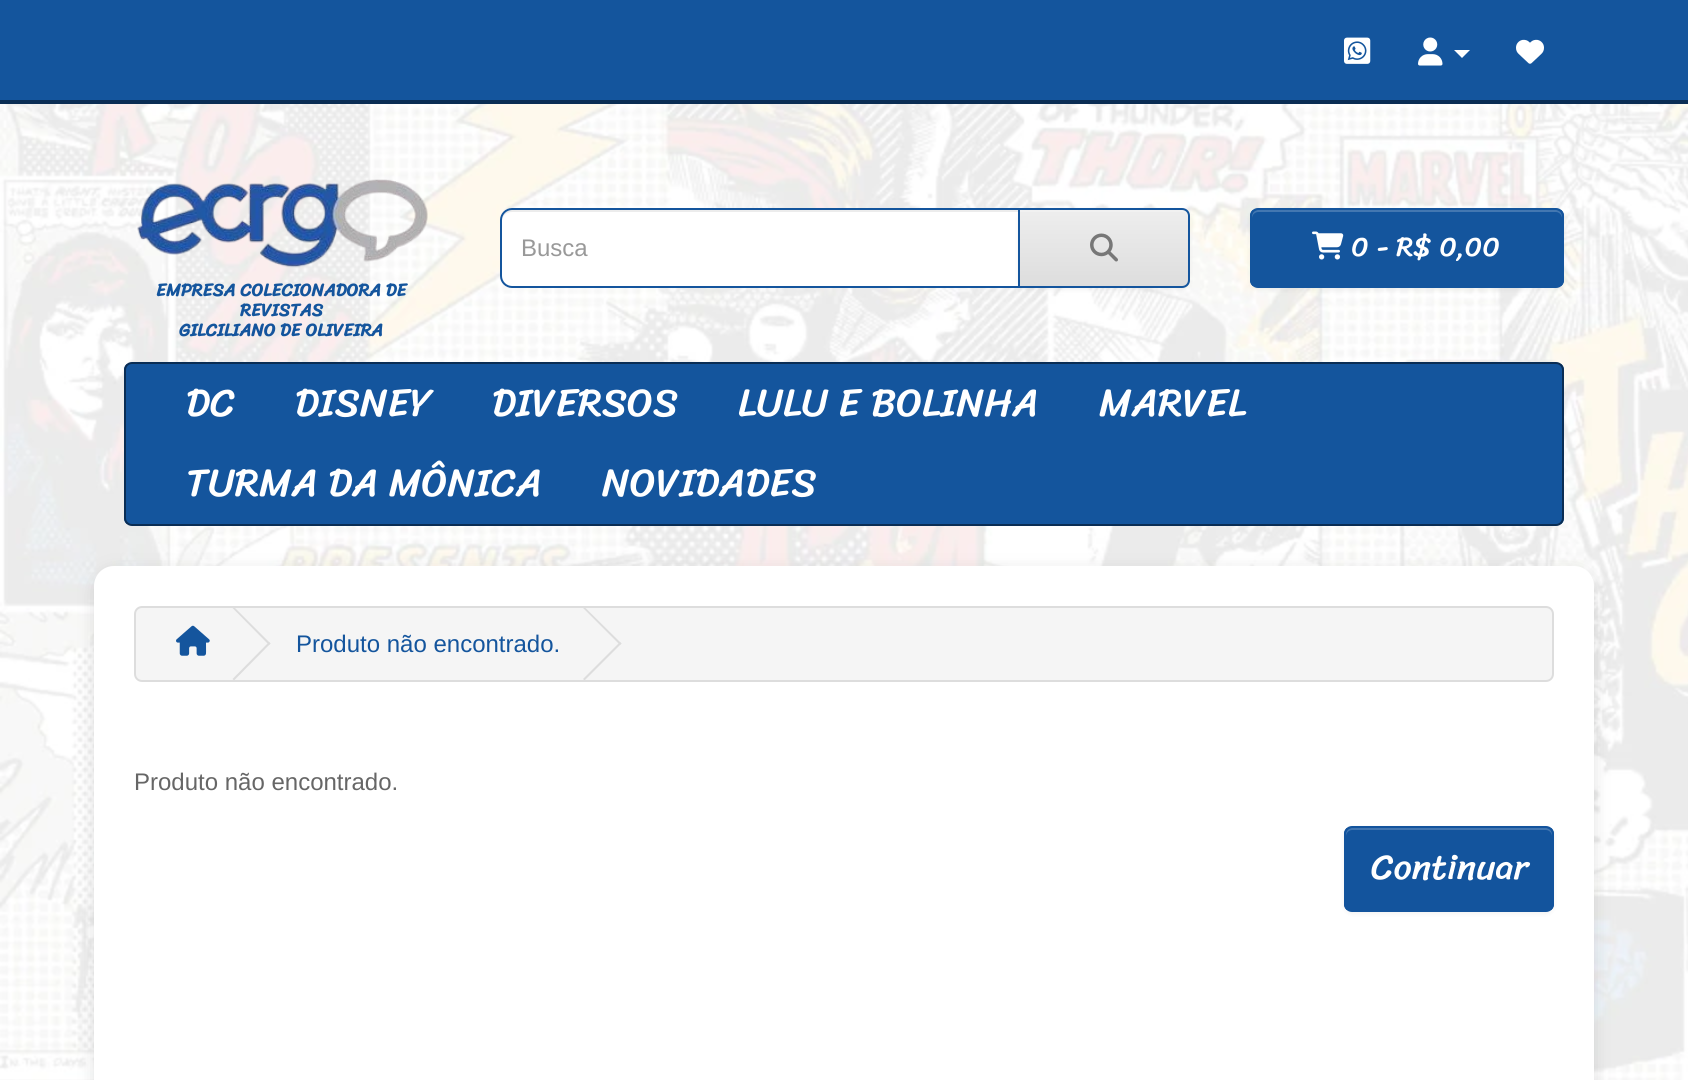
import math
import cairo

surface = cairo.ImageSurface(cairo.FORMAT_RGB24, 1688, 1080)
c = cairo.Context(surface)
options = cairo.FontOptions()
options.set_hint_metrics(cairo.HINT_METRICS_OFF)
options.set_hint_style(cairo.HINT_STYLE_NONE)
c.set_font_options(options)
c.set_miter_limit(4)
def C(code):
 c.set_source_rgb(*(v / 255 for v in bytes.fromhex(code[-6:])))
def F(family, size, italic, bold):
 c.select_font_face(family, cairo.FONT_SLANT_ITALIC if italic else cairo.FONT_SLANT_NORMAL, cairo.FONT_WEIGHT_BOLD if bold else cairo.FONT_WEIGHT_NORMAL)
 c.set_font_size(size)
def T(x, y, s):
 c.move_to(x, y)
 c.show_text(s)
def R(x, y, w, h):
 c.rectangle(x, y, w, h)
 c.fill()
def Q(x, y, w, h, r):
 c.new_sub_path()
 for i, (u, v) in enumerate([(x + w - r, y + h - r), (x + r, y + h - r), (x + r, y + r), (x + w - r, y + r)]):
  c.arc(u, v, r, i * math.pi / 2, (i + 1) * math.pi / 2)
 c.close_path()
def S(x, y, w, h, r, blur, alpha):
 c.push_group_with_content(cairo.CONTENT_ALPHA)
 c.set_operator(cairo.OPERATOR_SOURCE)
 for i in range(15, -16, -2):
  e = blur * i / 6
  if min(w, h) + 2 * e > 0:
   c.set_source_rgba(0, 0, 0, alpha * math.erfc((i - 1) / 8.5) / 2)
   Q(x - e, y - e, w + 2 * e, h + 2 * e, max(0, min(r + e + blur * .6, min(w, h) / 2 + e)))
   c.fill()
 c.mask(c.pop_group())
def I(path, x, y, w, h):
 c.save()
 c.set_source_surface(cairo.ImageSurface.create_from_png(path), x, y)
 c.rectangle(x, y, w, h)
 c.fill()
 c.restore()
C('ffffff')
c.paint()
I('1.png',0,104,1688,976)
C('14559d')
R(0,0,1688,100)
C('0a2d54')
R(0,100,1688,4)
I('2.png',1344,37,27,27)
I('3.png',1418,37,25,29)
C('ffffff')
c.new_path()
c.move_to(1454,50)
c.line_to(1470,50)
c.line_to(1462,58)
c.close_path()
c.fill()
I('4.png',1516,39,28,25)
c.new_path()
c.move_to(512,208)
c.line_to(1020,208)
c.line_to(1020,288)
c.line_to(512,288)
c.curve_to(505.5,288,500,282.5,500,276)
c.line_to(500,220)
c.curve_to(500,213.5,505.5,208,512,208)
c.close_path()
c.fill()
C('ececec')
c.new_path()
c.move_to(512,212)
c.line_to(1018,212)
c.line_to(1018,210)
c.line_to(512,210)
c.curve_to(505,210,502,216,502,222)
c.curve_to(502,216,506,212,512,212)
c.close_path()
c.fill()
c.new_path()
c.move_to(512,209)
c.line_to(1019,209)
c.line_to(1019,287)
c.line_to(512,287)
c.curve_to(506,287,501,282,501,276)
c.line_to(501,220)
c.curve_to(501,214,506,209,512,209)
c.close_path()
C('14559d')
c.stroke()
F('Liberation Sans',24,0,0)
C('999999')
T(521,256,'Busca')
C('000000')
S(1018,210,172,80,8,2,.05)
c.save()
c.new_path()
c.move_to(1018,208)
c.line_to(1182,208)
c.curve_to(1186.5,208,1190,211.5,1190,216)
c.line_to(1190,280)
c.curve_to(1190,284.5,1186.5,288,1182,288)
c.line_to(1018,288)
c.close_path()
c.clip()
gradient = cairo.LinearGradient(1104,210,1104,286)
gradient.add_color_stop_rgba(0,0.933,0.933,0.933,1)
gradient.add_color_stop_rgba(1,0.867,0.867,0.867,1)
c.set_source(gradient)
R(1020,210,170,76)
c.restore()
C('f1f1f1')
c.new_path()
c.move_to(1020,212)
c.line_to(1182,212)
c.curve_to(1185,212,1188,215,1188,218)
c.line_to(1188,216)
c.curve_to(1188,213,1185,210,1182,210)
c.line_to(1020,210)
c.close_path()
c.fill()
c.new_path()
c.move_to(1019,209)
c.line_to(1182,209)
c.curve_to(1186,209,1189,212,1189,216)
c.line_to(1189,280)
c.curve_to(1189,284,1186,287,1182,287)
c.line_to(1019,287)
c.close_path()
C('14559d')
c.stroke()
I('5.png',1090,233,28,29)
C('000000')
S(1250,210,314,80,8,2,.05)
c.save()
Q(1250,208,314,80,8)
c.clip()
C('14559d')
R(1250,210,314,76)
c.restore()
C('4377b1')
c.new_path()
c.move_to(1258,212)
c.line_to(1556,212)
c.curve_to(1559,212,1562,215,1562,218)
c.line_to(1562,216)
c.curve_to(1562,213,1559,210,1556,210)
c.line_to(1258,210)
c.curve_to(1255,210,1252,213,1252,216)
c.line_to(1252,218)
c.curve_to(1252,215,1255,212,1258,212)
c.close_path()
c.fill()
Q(1251,209,312,78,7)
C('14559d')
c.stroke()
I('6.png',1312,231,32,29)
F('Sriracha',28,0,0)
C('ffffff')
T(1351,256,'0 - R$ 0,00')
I('7.png',137,179,291,89)
F('Sriracha',18,0,1)
C('14559d')
T(156,296,'EMPRESA COLECIONADORA DE')
T(240,316,'REVISTAS')
T(179,336,'GILCILIANO DE OLIVEIRA')
c.save()
Q(124,362,1440,164,8)
c.clip()
R(124,364,1440,160)
c.restore()
Q(125,363,1438,162,7)
C('0a2d54')
c.stroke()
F('Sriracha',40,0,0)
C('ffffff')
T(186,416,'DC')
T(295,416,'DISNEY')
T(492,416,'DIVERSOS')
T(738,416,'LULU E BOLINHA')
T(1099,416,'MARVEL')
T(186,496,'TURMA DA MÔNICA')
T(602,496,'NOVIDADES')
C('636363')
S(94,570,1500,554,20,8,.2)
C('ffffff')
Q(94,566,1500,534,20)
c.fill()
C('f5f5f5')
Q(135,607,1418,74,7)
c.fill_preserve()
C('dddddd')
c.stroke()
I('8.png',176,625,34,31)
c.new_path()
c.move_to(232.5,608)
c.line_to(234,607)
c.line_to(270.5,643.5)
c.line_to(269,645)
c.close_path()
c.fill()
c.new_path()
c.move_to(232.5,679)
c.line_to(269,642)
c.line_to(270.5,643.5)
c.line_to(234,680.5)
c.close_path()
c.fill()
F('Liberation Sans',24,0,0)
C('14559d')
T(296,652,'Produto não encontrado.')
C('dddddd')
c.new_path()
c.move_to(583,608)
c.line_to(584.5,607)
c.line_to(621.5,643.5)
c.line_to(620,645)
c.close_path()
c.fill()
c.new_path()
c.move_to(583,679)
c.line_to(620,642)
c.line_to(621.5,643.5)
c.line_to(584.5,680.5)
c.close_path()
c.fill()
C('666666')
T(134,790,'Produto não encontrado.')
C('000000')
S(1344,828,210,86,8,2,.05)
c.save()
Q(1344,826,210,86,8)
c.clip()
C('13549d')
R(1344,828,210,82)
c.restore()
C('4276b1')
c.new_path()
c.move_to(1352,830)
c.line_to(1546,830)
c.curve_to(1549,830,1552,833,1552,836)
c.line_to(1552,834)
c.curve_to(1552,831,1549,828,1546,828)
c.line_to(1352,828)
c.curve_to(1349,828,1346,831,1346,834)
c.line_to(1346,836)
c.curve_to(1346,833,1349,830,1352,830)
c.close_path()
c.fill()
Q(1345,827,208,84,7)
C('13549d')
c.stroke()
F('Sriracha',36,0,0)
C('ffffff')
T(1371,879,'Continuar')
surface.write_to_png('o.png')
